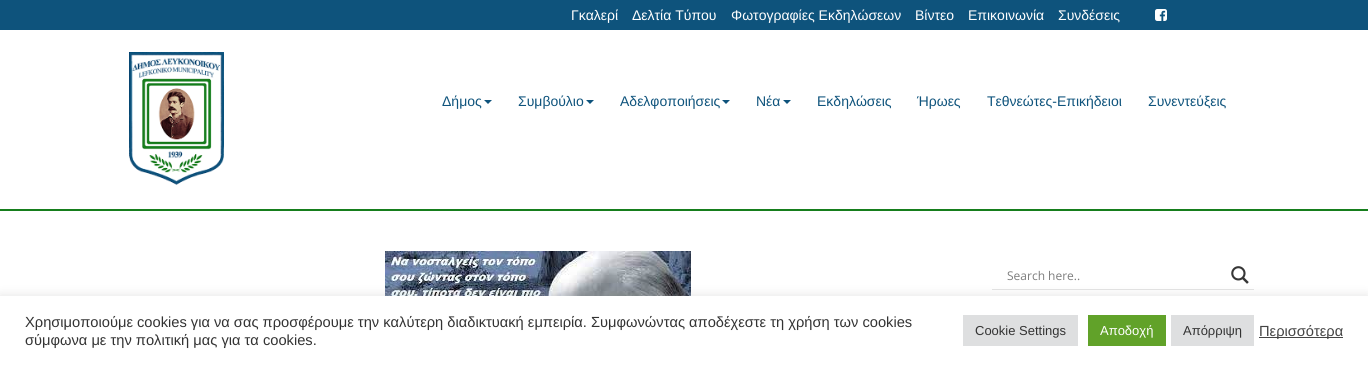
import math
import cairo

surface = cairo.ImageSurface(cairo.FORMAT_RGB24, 1368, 365)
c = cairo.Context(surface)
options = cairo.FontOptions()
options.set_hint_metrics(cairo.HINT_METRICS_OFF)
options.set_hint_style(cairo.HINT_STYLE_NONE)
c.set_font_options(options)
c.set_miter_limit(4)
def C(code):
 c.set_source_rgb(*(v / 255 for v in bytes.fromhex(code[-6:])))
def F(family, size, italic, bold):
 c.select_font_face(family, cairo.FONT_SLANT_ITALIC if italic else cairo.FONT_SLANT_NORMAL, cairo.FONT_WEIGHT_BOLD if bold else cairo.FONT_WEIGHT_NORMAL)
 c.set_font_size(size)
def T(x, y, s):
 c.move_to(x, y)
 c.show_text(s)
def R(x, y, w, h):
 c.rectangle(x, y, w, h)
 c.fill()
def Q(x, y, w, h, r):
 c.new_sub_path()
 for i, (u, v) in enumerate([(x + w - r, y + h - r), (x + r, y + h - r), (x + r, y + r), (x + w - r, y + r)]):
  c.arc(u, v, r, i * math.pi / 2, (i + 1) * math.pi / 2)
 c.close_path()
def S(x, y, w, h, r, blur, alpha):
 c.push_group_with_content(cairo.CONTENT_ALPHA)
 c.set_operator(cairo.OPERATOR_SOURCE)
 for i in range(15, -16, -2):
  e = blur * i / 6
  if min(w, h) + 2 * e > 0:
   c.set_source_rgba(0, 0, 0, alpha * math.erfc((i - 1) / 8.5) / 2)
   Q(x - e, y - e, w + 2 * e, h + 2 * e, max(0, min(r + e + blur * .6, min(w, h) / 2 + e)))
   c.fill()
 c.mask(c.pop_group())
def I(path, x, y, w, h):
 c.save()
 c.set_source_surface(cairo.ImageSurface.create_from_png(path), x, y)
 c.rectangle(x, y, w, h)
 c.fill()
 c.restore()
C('ffffff')
c.paint()
C('0e537c')
R(0,0,1368,30)
F('Liberation Sans',14,0,0)
C('ffffff')
T(571,20,'Γκαλερί')
T(632,20,'Δελτία Τύπου')
T(731,20,'Φωτογραφίες Εκδηλώσεων')
T(915,20,'Βίντεο')
T(968,20,'Επικοινωνία')
T(1058,20,'Συνδέσεις')
I('1.png',1155,9,12,12)
C('167e1d')
R(0,209,1368,2)
I('2.png',129,52,95,133)
C('0e537c')
T(442,106,'Δήμος')
c.new_path()
c.move_to(484,100)
c.line_to(492,100)
c.line_to(488,104)
c.close_path()
c.fill()
T(518,106,'Συμβούλιο')
c.new_path()
c.move_to(586,100)
c.line_to(594,100)
c.line_to(590,104)
c.close_path()
c.fill()
T(620,106,'Αδελφοποιήσεις')
c.new_path()
c.move_to(722,100)
c.line_to(730,100)
c.line_to(726,104)
c.close_path()
c.fill()
T(756,106,'Νέα')
c.new_path()
c.move_to(783,100)
c.line_to(791,100)
c.line_to(787,104)
c.close_path()
c.fill()
T(817,106,'Εκδηλώσεις')
T(917,106,'Ήρωες')
T(987,106,'Τεθνεώτες-Επικήδειοι')
T(1148,106,'Συνεντεύξεις')
I('3.png',385,251,306,45)
C('e4e4e4')
R(992,289,262,1)
F('Open Sans',12,0,0)
C('7d7d7d')
T(1007,280,'Search here..')
I('4.png',1231,266,18,18)
C('acabab')
S(0,295,1368,69,0,5,.3)
C('ffffff')
R(0,296,1368,69)
F('Liberation Sans',14.67,0,0)
C('333333')
T(25,327,'Χρησιμοποιούμε cookies για να σας προσφέρουμε την καλύτερη διαδικτυακή εμπειρία. Συμφωνώντας αποδέχεστε τη χρήση των cookies')
T(25,345,'σύμφωνα με την πολιτική μας για τα cookies.')
C('dedfe0')
R(963,315,115,31)
F('Liberation Sans',13,0,0)
C('333333')
T(975,335,'Cookie Settings')
C('61a229')
R(1088,315,78,31)
C('ffffff')
T(1100,335,'Αποδοχή')
C('dedfe0')
R(1171,315,83,31)
C('333333')
T(1183,335,'Απόρριψη')
C('444444')
R(1259,337,84,1)
F('Liberation Sans',14.67,0,0)
T(1259,336,'Περισσότερα')
surface.write_to_png('o.png')
